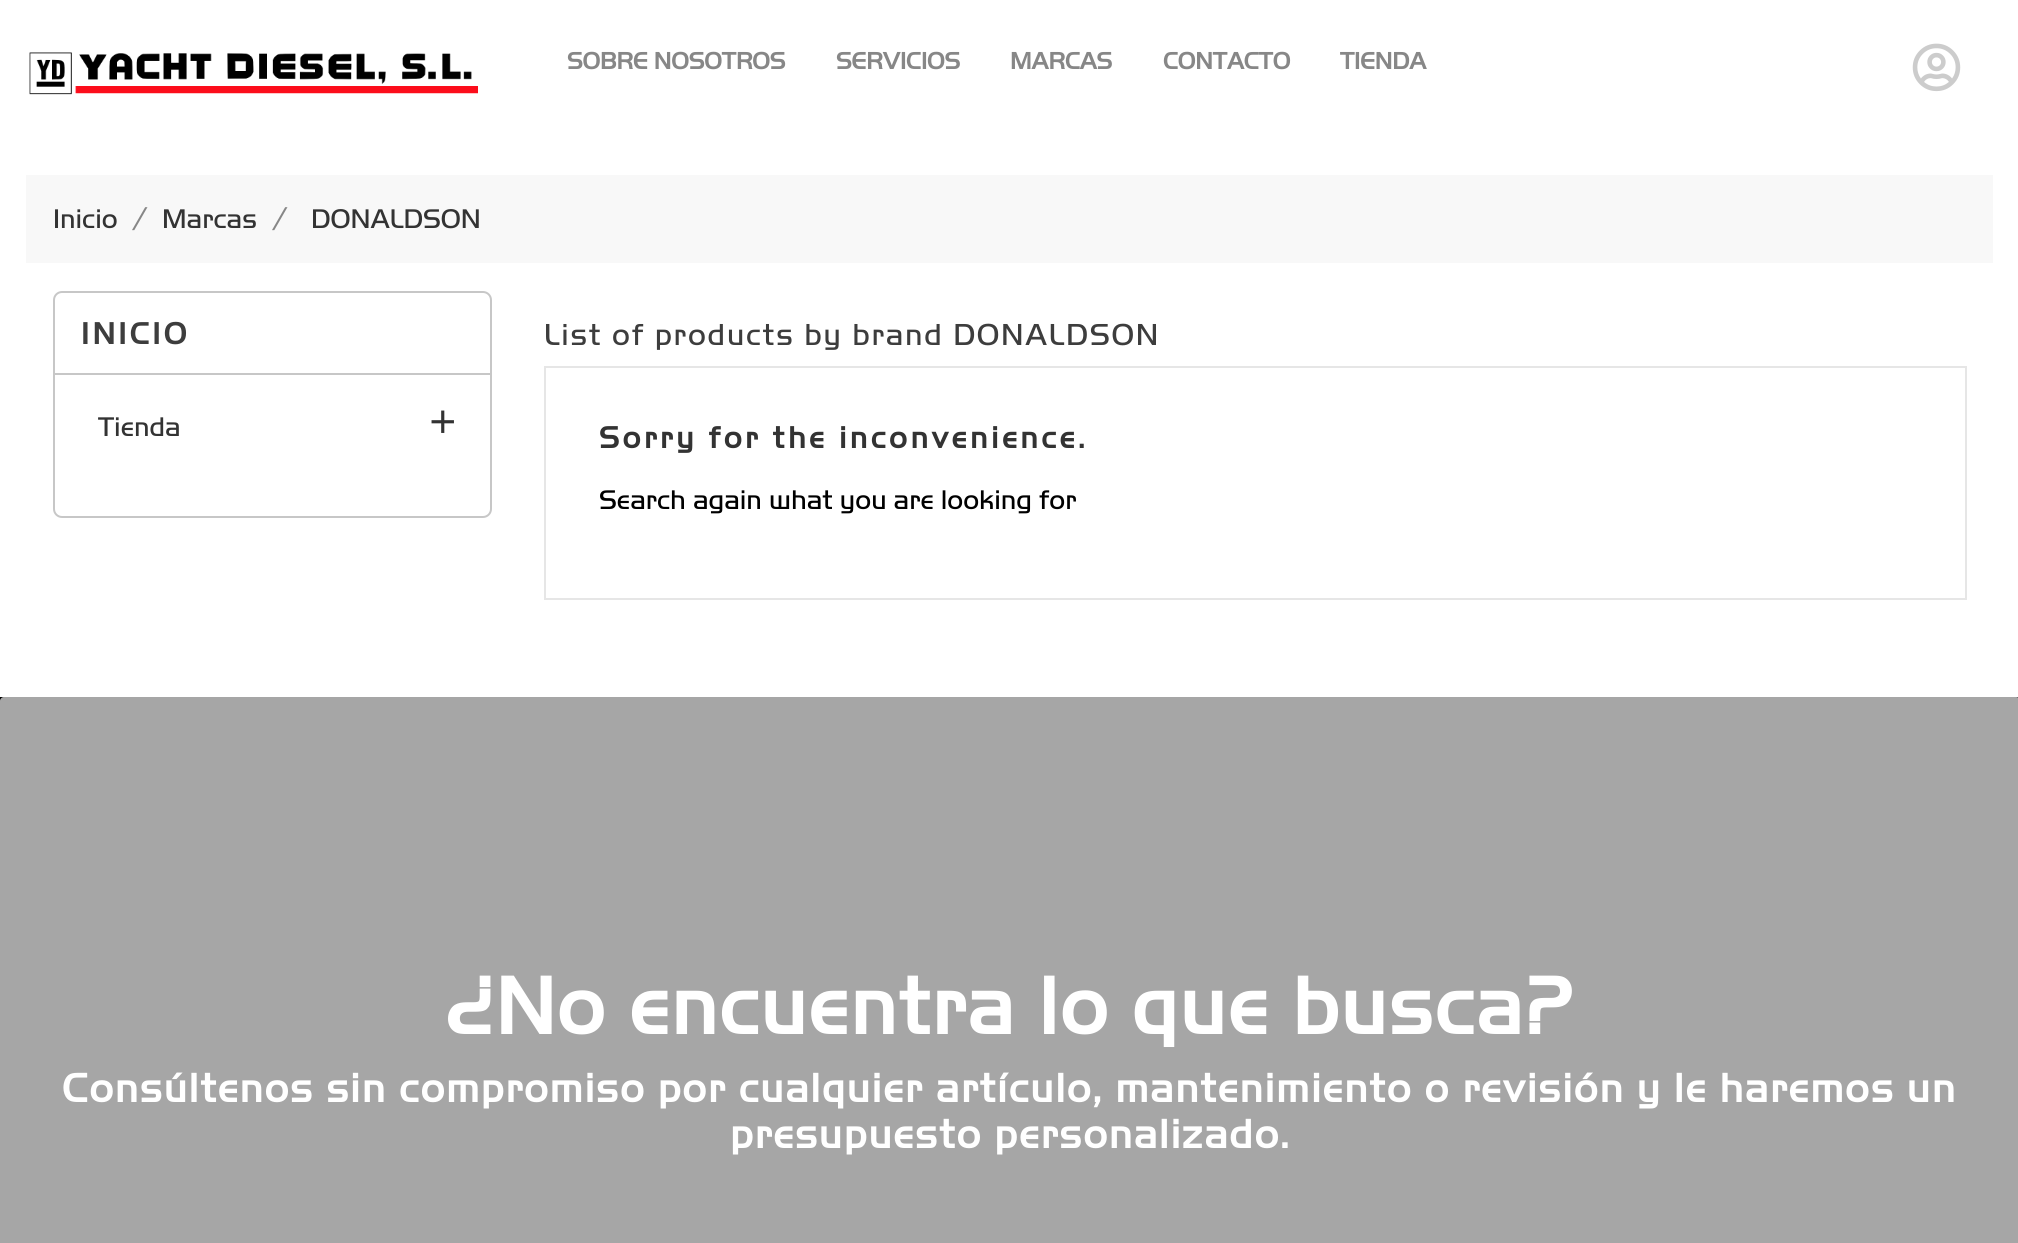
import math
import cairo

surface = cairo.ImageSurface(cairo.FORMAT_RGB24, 2018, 1243)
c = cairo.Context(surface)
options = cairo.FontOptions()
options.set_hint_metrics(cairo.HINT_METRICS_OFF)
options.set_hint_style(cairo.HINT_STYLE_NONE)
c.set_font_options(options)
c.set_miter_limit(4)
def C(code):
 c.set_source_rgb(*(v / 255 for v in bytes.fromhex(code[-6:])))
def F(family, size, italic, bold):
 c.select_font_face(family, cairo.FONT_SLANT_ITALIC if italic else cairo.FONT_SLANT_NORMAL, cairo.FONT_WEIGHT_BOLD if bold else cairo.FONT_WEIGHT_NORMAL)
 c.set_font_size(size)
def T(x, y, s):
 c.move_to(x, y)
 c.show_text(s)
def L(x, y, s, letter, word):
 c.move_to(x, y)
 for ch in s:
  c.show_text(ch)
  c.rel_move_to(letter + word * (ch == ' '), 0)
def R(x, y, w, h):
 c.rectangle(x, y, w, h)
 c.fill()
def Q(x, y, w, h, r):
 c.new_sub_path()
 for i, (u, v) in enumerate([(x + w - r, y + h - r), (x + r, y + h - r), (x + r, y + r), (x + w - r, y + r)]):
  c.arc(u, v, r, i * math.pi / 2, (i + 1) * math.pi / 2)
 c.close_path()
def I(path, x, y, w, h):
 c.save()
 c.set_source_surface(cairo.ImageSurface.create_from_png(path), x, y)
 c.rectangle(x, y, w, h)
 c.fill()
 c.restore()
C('ffffff')
c.paint()
I('1.png',29,52,449,43)
F('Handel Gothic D',24.5,0,1)
C('878787')
T(567,69,'SOBRE NOSOTROS')
T(836,69,'SERVICIOS')
T(1010,69,'MARCAS')
T(1163,69,'CONTACTO')
T(1340,69,'TIENDA')
I('2.png',1912,43,49,49)
C('f8f8f8')
R(26,175,1967,88)
F('Handel Gothic D Light',28,0,0)
C('333333')
T(53,228,'Inicio')
C('878787')
T(133,228,'/')
C('333333')
T(162,228,'Marcas')
C('878787')
T(273,228,'/')
C('333333')
T(311,228,'DONALDSON')
Q(54,292,437,225,8)
C('c7c7c7')
c.stroke()
R(54,373,436,2)
F('Handel Gothic D',31.5,0,1)
C('3d3d3d')
L(81,344,'INICIO',3.5,0)
F('Handel Gothic D Light',28,0,0)
C('333333')
T(98,436,'Tienda')
I('3.png',431,410,23,23)
F('Handel Gothic D Light',31.5,0,0)
C('3d3d3d')
L(544,345,'List of products by brand DONALDSON',1.75,0)
c.rectangle(545,367,1421,232)
C('e6e6e6')
c.stroke()
F('Handel Gothic D',31.5,0,1)
C('333333')
L(599,448,'Sorry for the inconvenience.',3.5,0)
F('Handel Gothic D Light',28,0,0)
C('000000')
T(599,509,'Search again what you are looking for')
R(0,697,2018,4)
C('a6a6a6')
Q(0,697,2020,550,4)
c.fill()
F('Handel Gothic D',84,0,1)
C('ffffff')
L(446,1034,'¿No encuentra lo que busca?',1.75,0)
F('Handel Gothic D',42,0,1)
L(62,1102,'Consúltenos sin compromiso por cualquier artículo, mantenimiento o revisión y le haremos un',1.75,0)
L(730,1148,'presupuesto personalizado.',1.75,0)
surface.write_to_png('o.png')
